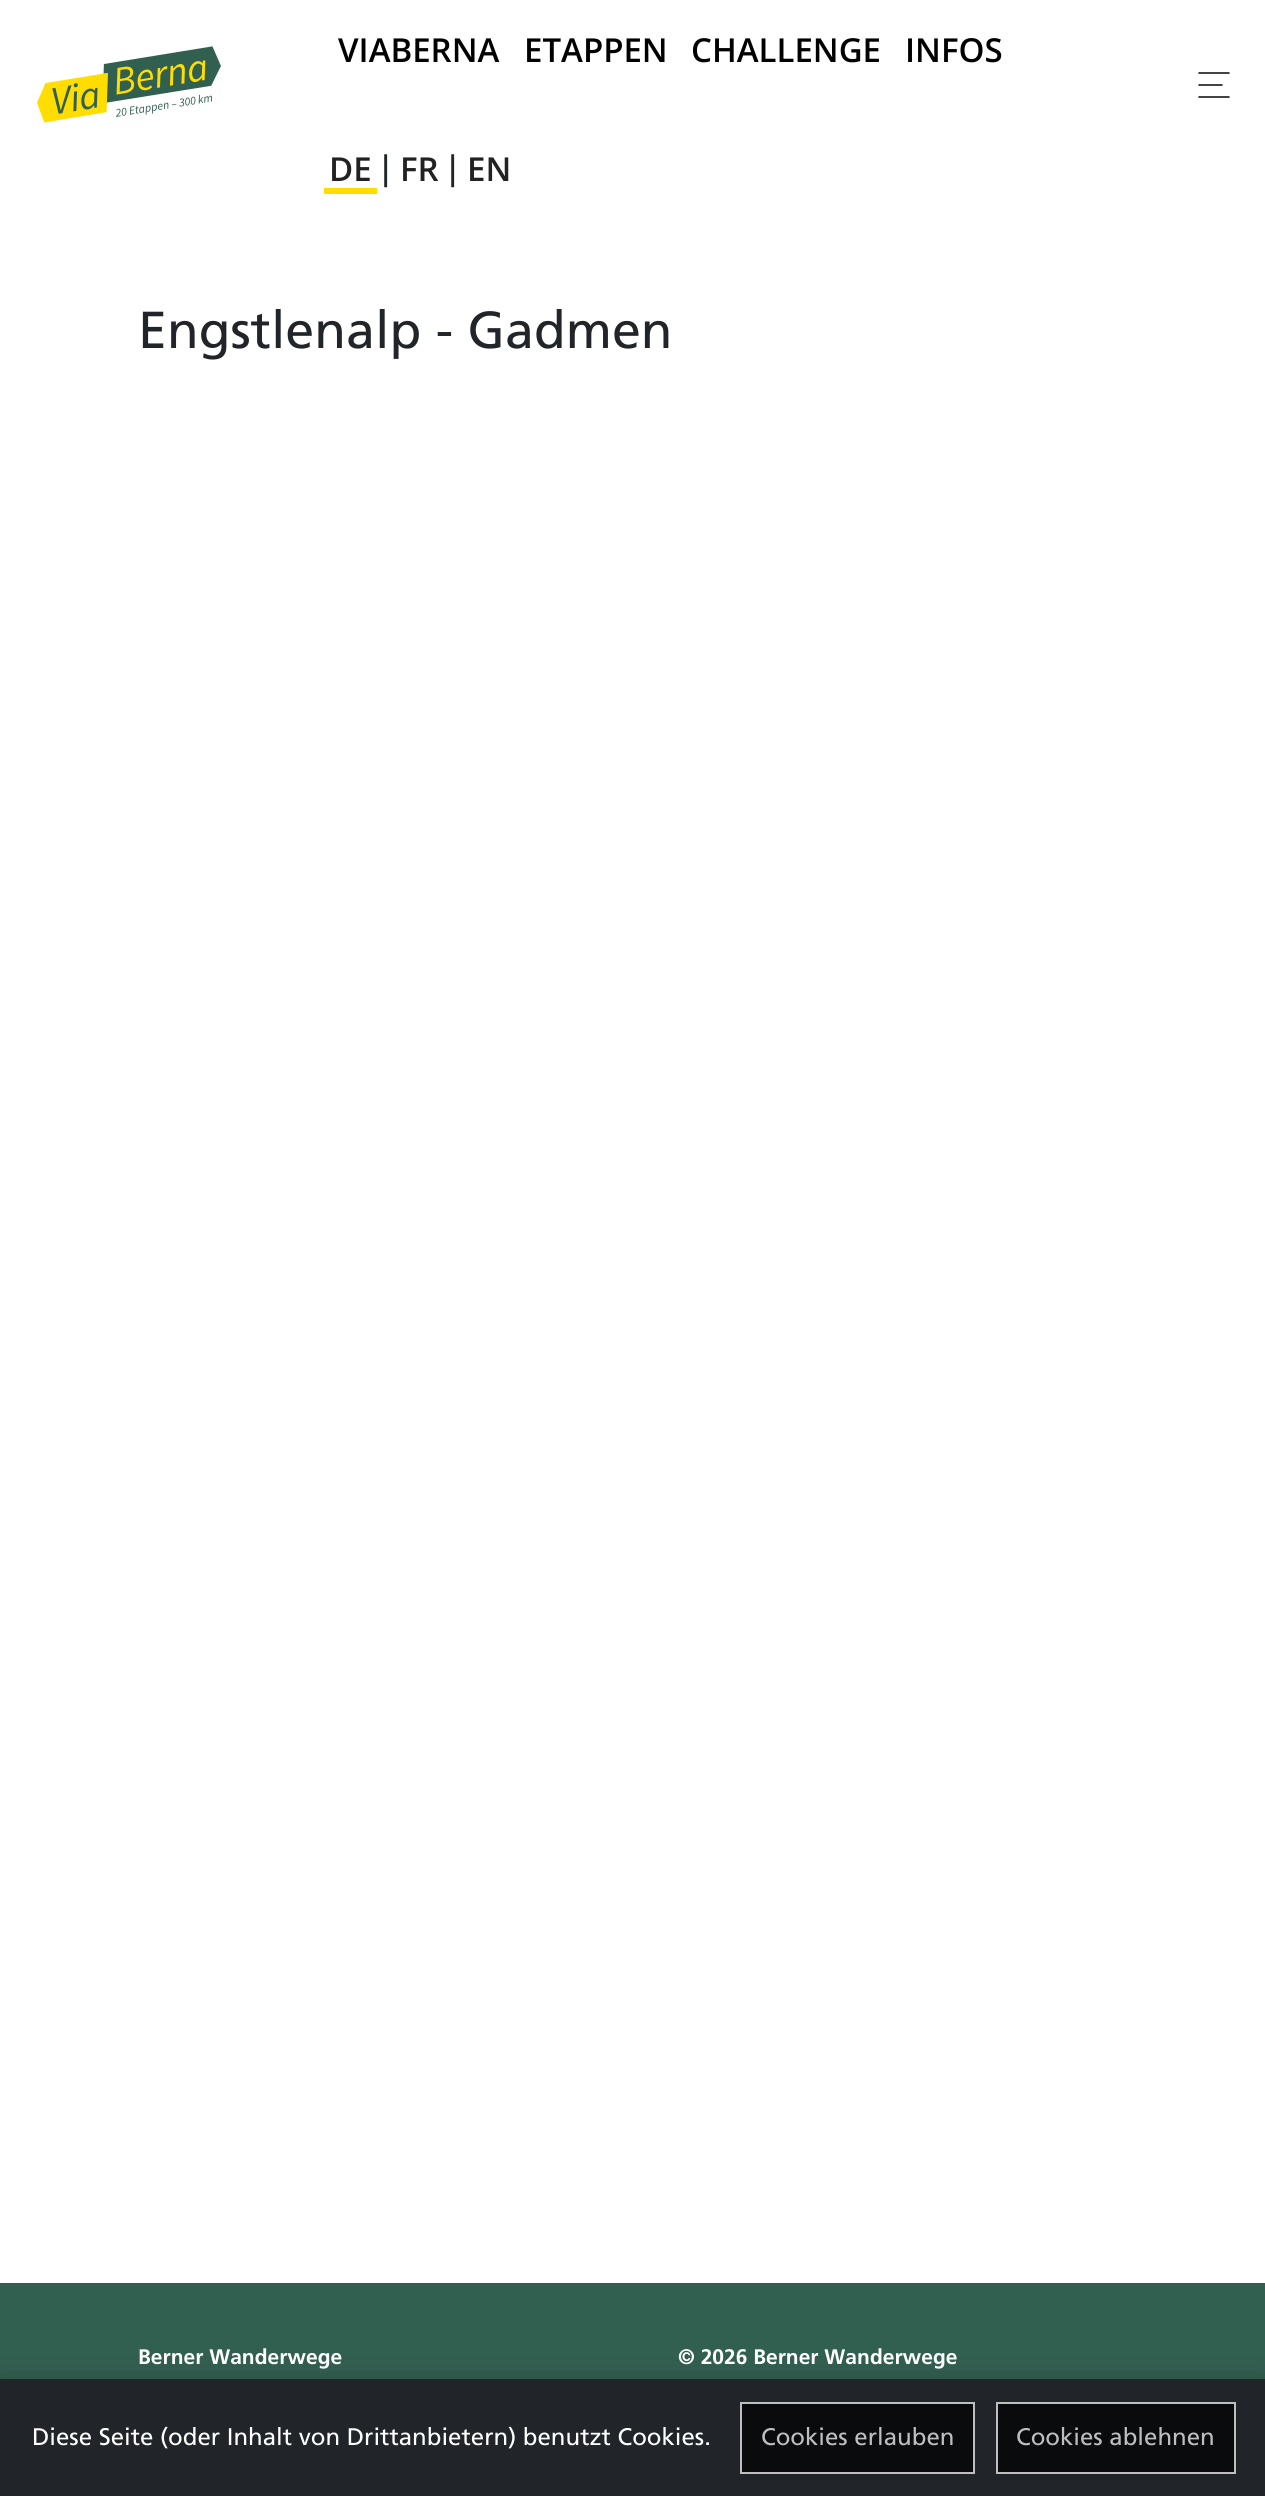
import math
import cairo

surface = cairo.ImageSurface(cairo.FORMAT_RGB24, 1265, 2496)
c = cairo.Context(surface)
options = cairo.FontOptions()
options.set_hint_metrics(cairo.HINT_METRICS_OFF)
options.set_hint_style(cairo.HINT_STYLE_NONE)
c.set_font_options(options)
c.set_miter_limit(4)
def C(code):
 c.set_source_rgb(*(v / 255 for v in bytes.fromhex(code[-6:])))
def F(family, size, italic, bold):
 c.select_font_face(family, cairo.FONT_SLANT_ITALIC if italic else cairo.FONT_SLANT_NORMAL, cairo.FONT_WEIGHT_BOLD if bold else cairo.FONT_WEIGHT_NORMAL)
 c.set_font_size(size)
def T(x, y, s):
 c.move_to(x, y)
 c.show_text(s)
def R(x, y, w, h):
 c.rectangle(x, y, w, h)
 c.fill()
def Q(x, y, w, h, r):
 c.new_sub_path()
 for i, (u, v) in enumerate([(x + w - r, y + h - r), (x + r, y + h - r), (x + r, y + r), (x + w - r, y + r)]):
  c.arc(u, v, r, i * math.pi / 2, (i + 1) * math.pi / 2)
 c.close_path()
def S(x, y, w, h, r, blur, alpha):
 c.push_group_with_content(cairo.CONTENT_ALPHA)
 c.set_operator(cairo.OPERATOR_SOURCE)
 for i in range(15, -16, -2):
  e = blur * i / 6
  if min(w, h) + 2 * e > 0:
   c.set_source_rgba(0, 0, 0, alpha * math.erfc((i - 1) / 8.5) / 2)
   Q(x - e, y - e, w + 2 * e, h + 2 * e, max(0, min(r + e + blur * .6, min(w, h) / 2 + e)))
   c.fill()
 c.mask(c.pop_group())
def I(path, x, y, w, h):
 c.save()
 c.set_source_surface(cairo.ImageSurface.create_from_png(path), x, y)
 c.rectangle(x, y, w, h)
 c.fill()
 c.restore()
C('ffffff')
c.paint()
I('1.png',37,46,184,77)
F('Open Sans SemiBold',33,0,0)
C('000000')
T(338,62,'VIABERNA')
T(524,62,'ETAPPEN')
T(691,62,'CHALLENGE')
T(905,62,'INFOS')
C('222222')
T(329,181,'DE')
C('ffdd00')
R(324,188,53,6)
F('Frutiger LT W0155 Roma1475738',33,0,0)
C('212529')
T(382,179,'|')
F('Open Sans SemiBold',33,0,0)
C('222222')
T(400,181,'FR')
F('Frutiger LT W0155 Roma1475738',33,0,0)
C('212529')
T(449,179,'|')
F('Open Sans SemiBold',33,0,0)
C('222222')
T(467,181,'EN')
c.new_path()
c.move_to(1199,97)
c.line_to(1229,97)
c.move_to(1199,85)
c.line_to(1222,85)
c.move_to(1199,73)
c.line_to(1229,73)
C('000000')
c.set_line_width(1.5)
c.set_line_cap(cairo.LINE_CAP_ROUND)
c.stroke()
F('Frutiger LT W0155 Roma1475738',52,0,0)
C('212529')
T(138,348,'Engstlenalp - Gadmen')
C('315f50')
R(0,2283,1265,96)
C('212529')
S(0,2393,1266,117,0,15,1)
C('212529')
R(0,2379,1265,117)
F('Frutiger LT W0155 Roma1475738',24,0,0)
C('ffffff')
T(32,2445,'Diese Seite (oder Inhalt von Drittanbietern) benutzt Cookies.')
C('0a0b0c')
R(742,2404,231,68)
c.rectangle(741,2403,233,70)
C('bcbebf')
c.set_line_width(2)
c.set_line_cap(cairo.LINE_CAP_BUTT)
c.stroke()
T(761,2445,'Cookies erlauben')
C('0a0b0c')
R(998,2404,236,68)
c.rectangle(997,2403,238,70)
C('bcbebf')
c.stroke()
T(1016,2445,'Cookies ablehnen')
F('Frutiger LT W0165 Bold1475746',21,0,1)
C('ffffff')
T(138,2364,'Berner Wanderwege')
T(678,2364,'© 2026 Berner Wanderwege')
surface.write_to_png('o.png')
